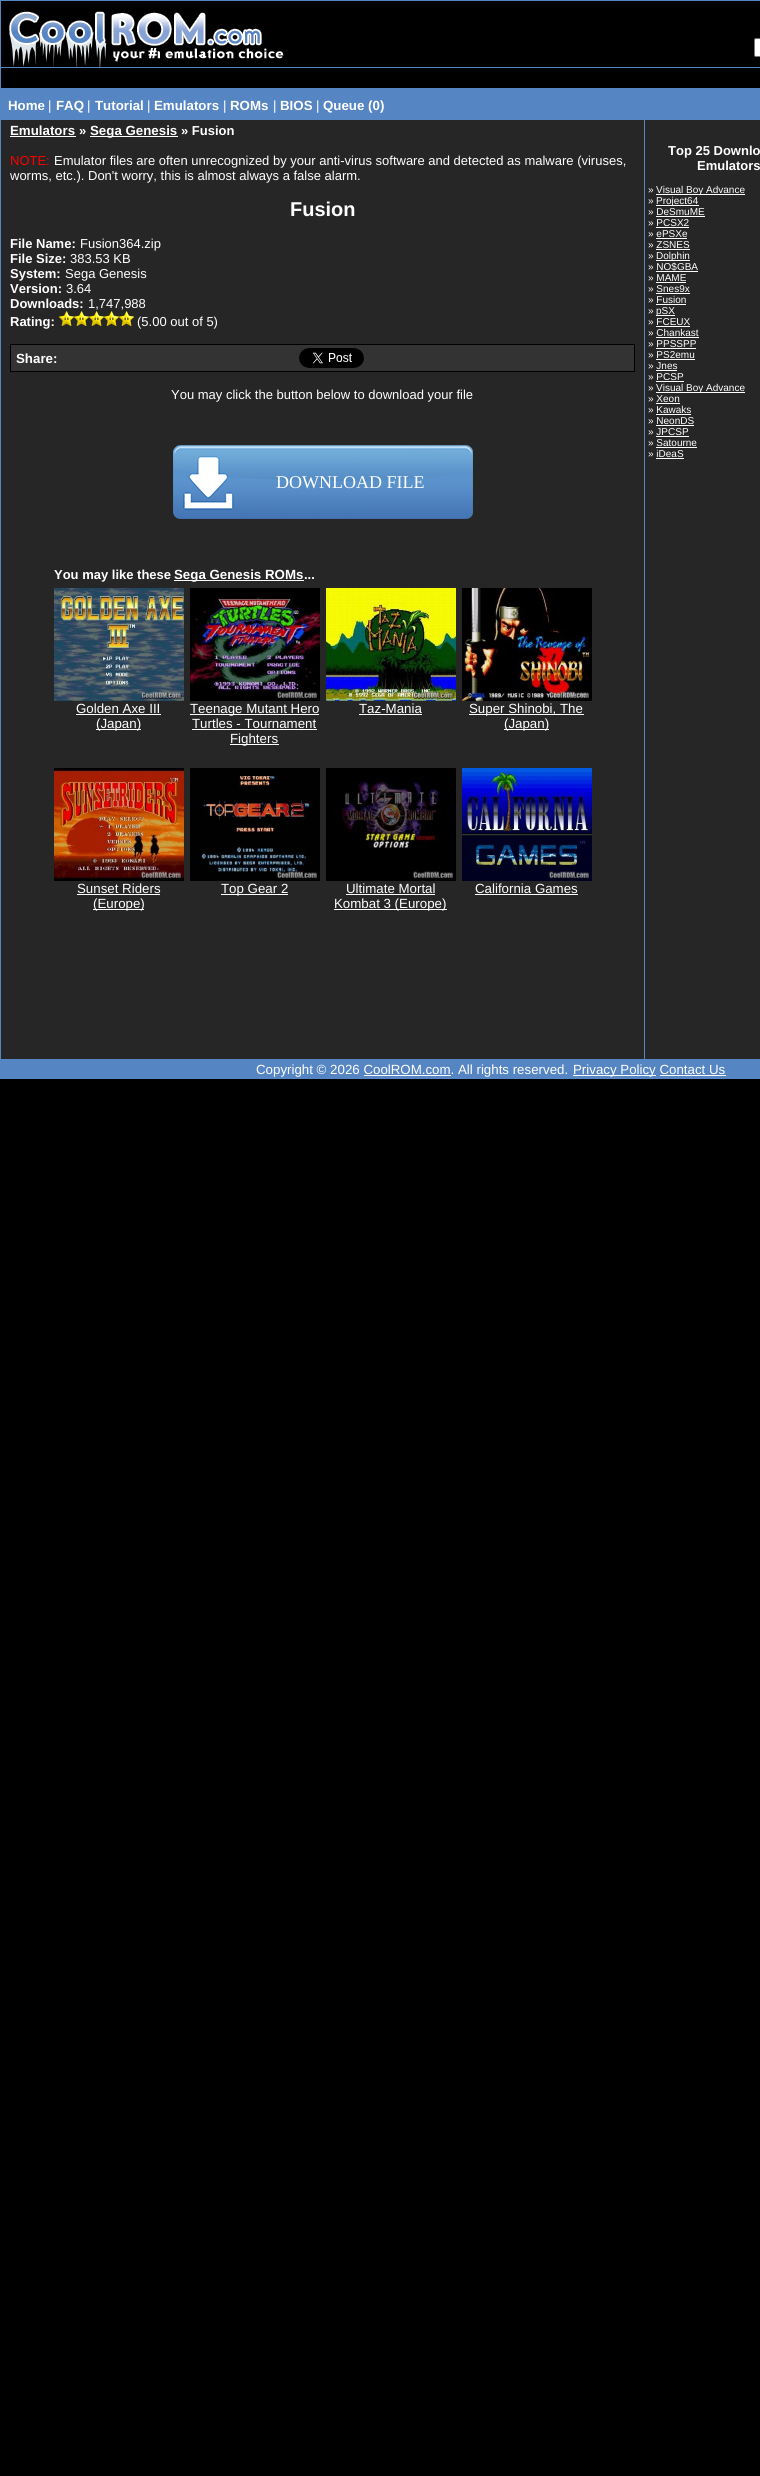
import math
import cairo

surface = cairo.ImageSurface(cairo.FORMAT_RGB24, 760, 2476)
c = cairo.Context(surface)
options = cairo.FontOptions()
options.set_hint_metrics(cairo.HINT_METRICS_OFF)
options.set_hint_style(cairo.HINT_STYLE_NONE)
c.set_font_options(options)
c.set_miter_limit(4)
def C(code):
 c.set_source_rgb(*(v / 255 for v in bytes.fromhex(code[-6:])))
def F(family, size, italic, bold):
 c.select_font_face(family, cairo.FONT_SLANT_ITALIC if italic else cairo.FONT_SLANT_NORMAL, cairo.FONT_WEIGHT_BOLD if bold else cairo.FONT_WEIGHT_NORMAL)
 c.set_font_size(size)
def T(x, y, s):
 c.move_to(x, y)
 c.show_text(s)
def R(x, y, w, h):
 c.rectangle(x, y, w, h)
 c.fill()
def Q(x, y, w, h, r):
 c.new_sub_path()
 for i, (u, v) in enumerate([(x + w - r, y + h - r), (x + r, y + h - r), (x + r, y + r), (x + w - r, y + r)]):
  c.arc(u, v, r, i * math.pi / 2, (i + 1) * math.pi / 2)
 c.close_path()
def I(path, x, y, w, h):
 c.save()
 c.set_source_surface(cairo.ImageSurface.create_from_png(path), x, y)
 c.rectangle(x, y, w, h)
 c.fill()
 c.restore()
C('000000')
c.paint()
C('5685c4')
R(0,0,760,1079)
C('000000')
R(1,1,759,66)
I('1.png',9,11,275,56)
C('ffffff')
Q(754.5,38.5,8,18,1.5)
c.fill_preserve()
C('767676')
c.set_line_width(1)
c.stroke()
C('000000')
R(1,68,759,20)
F('Liberation Sans',13.3,0,1)
C('ffffff')
T(8,110,'Home')
F('Liberation Sans',13.3,0,0)
T(48,110,'|')
F('Liberation Sans',13.3,0,1)
T(56,110,'FAQ')
F('Liberation Sans',13.3,0,0)
T(87,110,'|')
F('Liberation Sans',13.3,0,1)
T(95,110,'Tutorial')
F('Liberation Sans',13.3,0,0)
T(147,110,'|')
F('Liberation Sans',13.3,0,1)
T(154,110,'Emulators')
F('Liberation Sans',13.3,0,0)
T(223,110,'|')
F('Liberation Sans',13.3,0,1)
T(230,110,'ROMs')
F('Liberation Sans',13.3,0,0)
T(273,110,'|')
F('Liberation Sans',13.3,0,1)
T(280,110,'BIOS')
F('Liberation Sans',13.3,0,0)
T(316,110,'|')
F('Liberation Sans',13.3,0,1)
T(323,110,'Queue (0)')
C('262626')
R(1,120,643,939)
C('ffffff')
T(10,135,'Emulators')
R(10,136,66,1)
F('Liberation Sans',13,0,1)
T(79,135,'»')
R(90,136,88,1)
F('Liberation Sans',13.3,0,1)
T(90,135,'Sega Genesis')
F('Liberation Sans',13,0,1)
T(181,135,'» Fusion')
F('Liberation Sans',13,0,0)
C('ff0000')
T(10,165,'NOTE:')
C('ffffff')
T(54,165,'Emulator files are often unrecognized by your anti-virus software and detected as malware (viruses,')
T(10,180,'worms, etc.). Don\'t worry, this is almost always a false alarm.')
F('Liberation Sans',20,0,1)
T(290,216,'Fusion')
F('Liberation Sans',13,0,1)
T(10,248,'File Name:')
F('Liberation Sans',13,0,0)
T(80,248,'Fusion364.zip')
F('Liberation Sans',13,0,1)
T(10,263,'File Size:')
F('Liberation Sans',13,0,0)
T(70,263,'383.53 KB')
F('Liberation Sans',13,0,1)
T(10,278,'System:')
F('Liberation Sans',13,0,0)
T(65,278,'Sega Genesis')
F('Liberation Sans',13,0,1)
T(10,293,'Version:')
F('Liberation Sans',13,0,0)
T(66,293,'3.64')
F('Liberation Sans',13,0,1)
T(10,308,'Downloads:')
F('Liberation Sans',13,0,0)
T(88,308,'1,747,988')
F('Liberation Sans',13,0,1)
T(10,326,'Rating:')
I('2.png',59,311,15,15)
I('2.png',74,311,15,15)
I('2.png',89,311,15,15)
I('2.png',104,311,15,15)
I('2.png',119,311,15,15)
F('Liberation Sans',13,0,0)
T(137,326,'(5.00 out of 5)')
C('333333')
c.rectangle(10.5,344.5,624,27)
c.fill_preserve()
C('000000')
c.stroke()
F('Liberation Sans',13.3,0,1)
C('ffffff')
T(16,363,'Share:')
I('3.png',299,348,65,20)
F('Liberation Sans',13,0,0)
T(171,399,'You may click the button below to download your file')
I('4.png',173,445,300,74)
F('Liberation Serif',18,0,0)
T(276,488,'DOWNLOAD FILE')
F('Liberation Sans',13,0,1)
T(54,579,'You may like these')
R(174,580,130,1)
F('Liberation Sans',13.3,0,1)
T(174,579,'Sega Genesis ROMs')
F('Liberation Sans',13,0,1)
T(304,579,'...')
I('5.png',54,588,130,113)
F('Liberation Sans',13.3,0,0)
T(76,713,'Golden Axe III')
R(76,714,85,1)
R(96,729,45,1)
T(96,728,'(Japan)')
I('6.png',190,588,130,113)
R(190,714,129,1)
T(190,713,'Teenage Mutant Hero')
T(192,728,'Turtles - Tournament')
R(192,729,125,1)
R(230,744,49,1)
T(230,743,'Fighters')
I('7.png',326,588,130,113)
T(359,713,'Taz-Mania')
R(359,714,63,1)
I('8.png',462,588,130,113)
R(469,714,115,1)
T(469,713,'Super Shinobi, The')
R(504,729,45,1)
T(504,728,'(Japan)')
I('9.png',54,768,130,113)
T(77,893,'Sunset Riders')
R(77,894,83,1)
R(93,909,51,1)
T(93,908,'(Europe)')
I('10.png',190,768,130,113)
R(221,894,67,1)
T(221,893,'Top Gear 2')
I('11.png',326,768,130,113)
T(346,893,'Ultimate Mortal')
R(346,894,89,1)
R(334,909,113,1)
T(334,908,'Kombat 3 (Europe)')
I('12.png',462,768,130,113)
T(475,893,'California Games')
R(475,894,103,1)
C('262626')
R(645,120,115,939)
F('Liberation Sans',13,0,1)
C('ffffff')
T(668,155,'Top 25 Downlo')
T(697,170,'Emulators')
F('Liberation Sans',10,0,0)
T(648,193,'»')
R(656,194,89,1)
T(656,193,'Visual Boy Advance')
T(648,204,'»')
R(656,205,43,1)
T(656,204,'Project64')
T(648,215,'» DeSmuME')
R(656,216,49,1)
T(648,226,'» PCSX2')
R(656,227,33,1)
T(648,237,'» ePSXe')
R(656,238,31,1)
T(648,248,'» ZSNES')
R(656,249,34,1)
T(648,259,'»')
R(656,260,34,1)
T(656,259,'Dolphin')
T(648,270,'» NO$GBA')
R(656,271,42,1)
T(648,281,'» MAME')
R(656,282,30,1)
T(648,292,'» Snes9x')
R(656,293,34,1)
T(648,303,'» Fusion')
R(656,304,30,1)
T(648,314,'»')
R(656,315,19,1)
T(656,314,'pSX')
T(648,325,'» FCEUX')
R(656,326,34,1)
T(648,336,'» Chankast')
R(656,337,43,1)
T(648,347,'» PPSSPP')
R(656,348,40,1)
T(648,358,'» PS2emu')
R(656,359,39,1)
T(648,369,'» Jnes')
R(656,370,21,1)
T(648,380,'» PCSP')
R(656,381,28,1)
T(648,391,'»')
R(656,392,89,1)
T(656,391,'Visual Boy Advance')
T(648,402,'» Xeon')
R(656,403,24,1)
T(648,413,'» Kawaks')
R(656,414,35,1)
T(648,424,'» NeonDS')
R(656,425,38,1)
T(648,435,'» JPCSP')
R(656,436,33,1)
T(648,446,'» Satourne')
R(656,447,41,1)
T(648,457,'» iDeaS')
R(656,458,28,1)
F('Liberation Sans',13.3,0,0)
T(256,1074,'Copyright © 2026 CoolROM.com. All rights reserved.')
R(573,1075,83,1)
T(573,1074,'Privacy Policy Contact Us')
R(364,1075,87,1)
R(660,1075,66,1)
surface.write_to_png('o.png')
